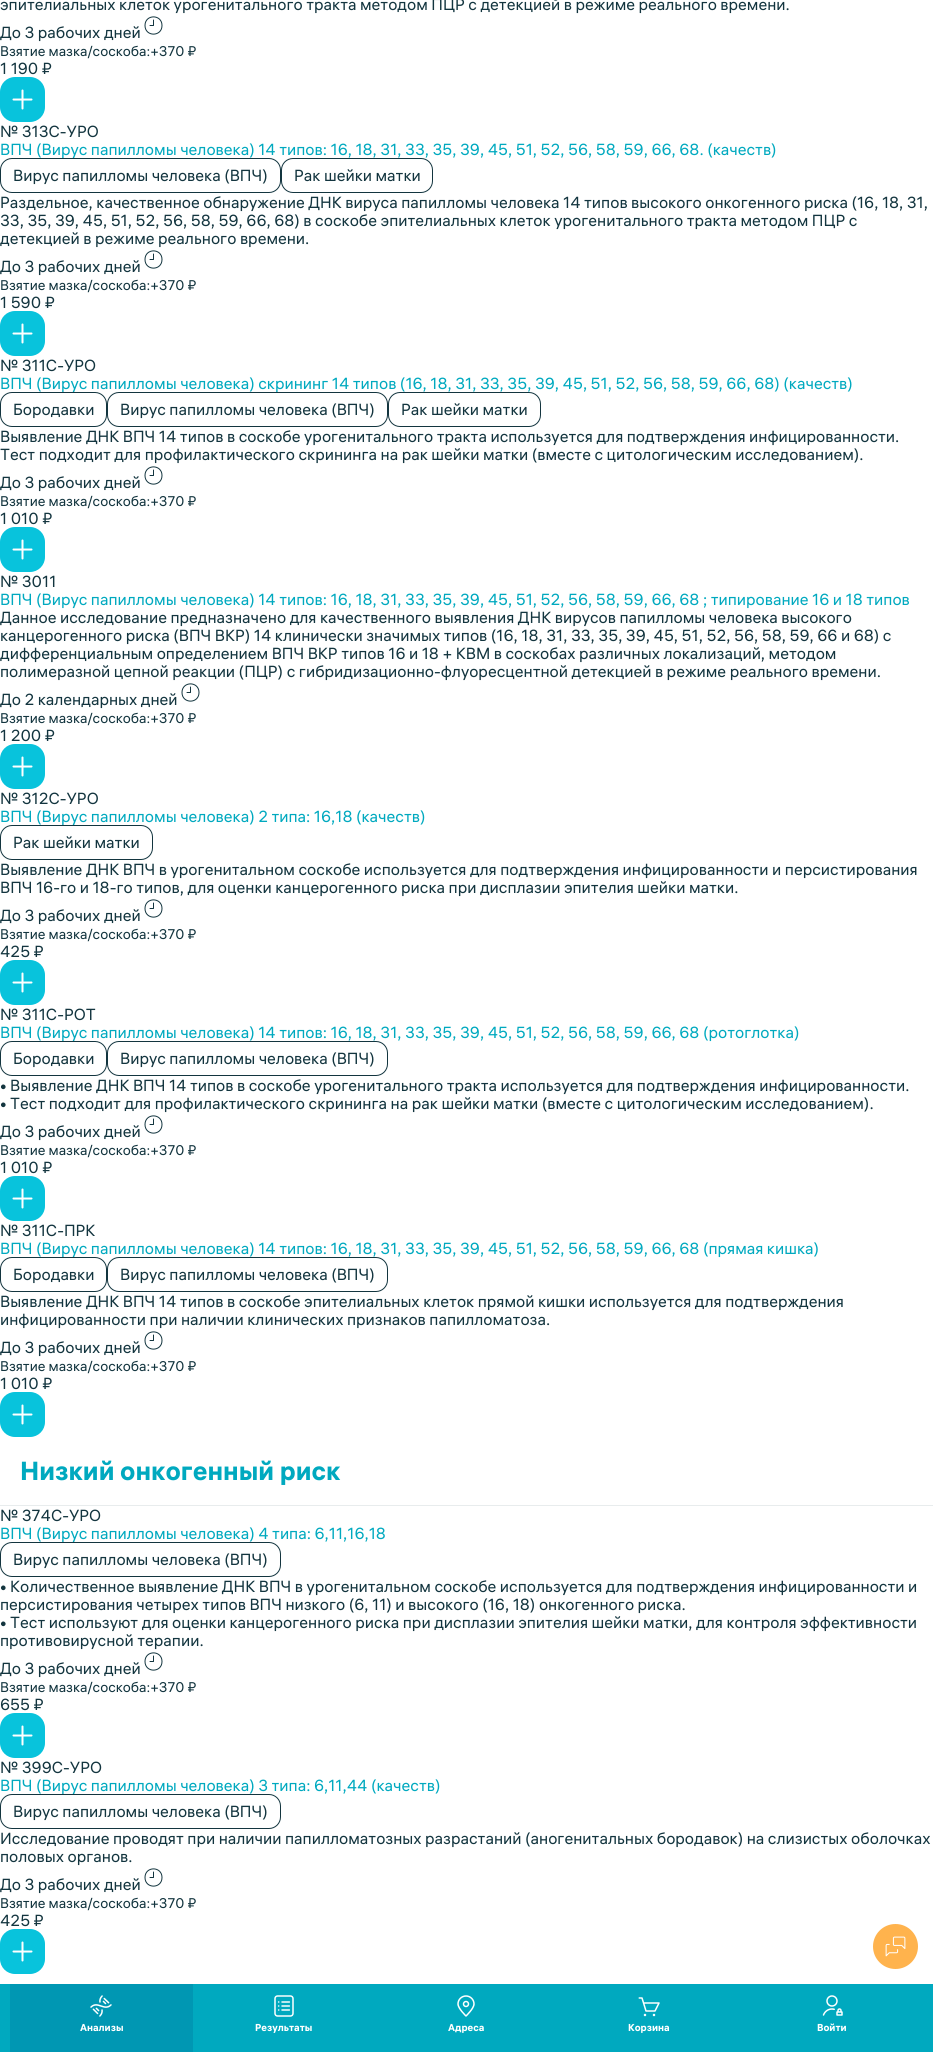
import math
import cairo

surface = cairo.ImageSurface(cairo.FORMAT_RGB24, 933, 2052)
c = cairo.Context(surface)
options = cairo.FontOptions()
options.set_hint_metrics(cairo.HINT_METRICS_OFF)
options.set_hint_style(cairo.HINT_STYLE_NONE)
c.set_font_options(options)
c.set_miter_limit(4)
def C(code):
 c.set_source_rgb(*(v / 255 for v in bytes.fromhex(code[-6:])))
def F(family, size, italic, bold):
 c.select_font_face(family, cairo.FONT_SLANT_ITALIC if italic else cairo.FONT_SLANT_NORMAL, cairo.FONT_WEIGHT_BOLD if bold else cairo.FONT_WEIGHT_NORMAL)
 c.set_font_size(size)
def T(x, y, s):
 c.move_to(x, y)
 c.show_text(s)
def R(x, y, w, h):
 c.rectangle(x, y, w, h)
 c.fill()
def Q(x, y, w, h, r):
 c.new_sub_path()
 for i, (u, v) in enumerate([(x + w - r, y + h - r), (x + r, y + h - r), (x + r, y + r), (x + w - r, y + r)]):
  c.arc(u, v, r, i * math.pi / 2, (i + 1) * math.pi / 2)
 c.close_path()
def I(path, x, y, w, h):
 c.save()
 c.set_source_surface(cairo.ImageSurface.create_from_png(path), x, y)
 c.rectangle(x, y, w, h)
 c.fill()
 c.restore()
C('ffffff')
c.paint()
F('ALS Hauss',16,0,0)
C('13353f')
T(0,10,'эпителиальных клеток урогенитального тракта методом ПЦР с детекцией в режиме реального времени.')
T(0,38,'До 3 рабочих дней')
c.new_path()
c.move_to(153.5,20)
c.line_to(153.5,25.5)
c.line_to(150,25.5)
c.move_to(162,25.5)
c.curve_to(162,37,145,37,145,25.5)
c.curve_to(145,14,162,14,162,25.5)
c.close_path()
c.set_line_width(1)
c.set_line_cap(cairo.LINE_CAP_ROUND)
c.set_line_join(cairo.LINE_JOIN_ROUND)
c.stroke()
F('ALS Hauss',14,0,0)
T(0,56,'Взятие мазка/соскоба:+370 ₽')
F('ALS Hauss',16,0,0)
T(0,74,'1 190 ₽')
C('08c3dc')
Q(0,77,45,45,15)
c.fill()
c.new_path()
c.move_to(31.5,99.5)
c.line_to(13.5,99.5)
c.move_to(22.5,90.5)
c.line_to(22.5,108.5)
C('ffffff')
c.set_line_width(2)
c.stroke()
C('13353f')
T(0,137,'№ 313С-УРО')
C('00a9bf')
T(0,155,'ВПЧ (Вирус папилломы человека) 14 типов: 16, 18, 31, 33, 35, 39, 45, 51, 52, 56, 58, 59, 66, 68. (качеств)')
Q(.5,158.5,280,34,11.5)
C('13353f')
c.set_line_width(1)
c.set_line_cap(cairo.LINE_CAP_BUTT)
c.set_line_join(cairo.LINE_JOIN_MITER)
c.stroke()
T(13,181,'Вирус папилломы человека (ВПЧ)')
Q(281.5,158.5,151,34,11.5)
c.stroke()
T(294,181,'Рак шейки матки')
T(0,208,'Раздельное, качественное обнаружение ДНК вируса папилломы человека 14 типов высокого онкогенного риска (16, 18, 31,')
T(0,226,'33, 35, 39, 45, 51, 52, 56, 58, 59, 66, 68) в соскобе эпителиальных клеток урогенитального тракта методом ПЦР с')
T(0,244,'детекцией в режиме реального времени.')
T(0,272,'До 3 рабочих дней')
c.new_path()
c.move_to(153.5,254)
c.line_to(153.5,259.5)
c.line_to(150,259.5)
c.move_to(162,259.5)
c.curve_to(162,271,145,271,145,259.5)
c.curve_to(145,248,162,248,162,259.5)
c.close_path()
c.set_line_cap(cairo.LINE_CAP_ROUND)
c.set_line_join(cairo.LINE_JOIN_ROUND)
c.stroke()
F('ALS Hauss',14,0,0)
T(0,290,'Взятие мазка/соскоба:+370 ₽')
F('ALS Hauss',16,0,0)
T(0,308,'1 590 ₽')
C('08c3dc')
Q(0,311,45,45,15)
c.fill()
c.new_path()
c.move_to(31.5,333.5)
c.line_to(13.5,333.5)
c.move_to(22.5,324.5)
c.line_to(22.5,342.5)
C('ffffff')
c.set_line_width(2)
c.stroke()
C('13353f')
T(0,371,'№ 311С-УРО')
C('00a9bf')
T(0,389,'ВПЧ (Вирус папилломы человека) скрининг 14 типов (16, 18, 31, 33, 35, 39, 45, 51, 52, 56, 58, 59, 66, 68) (качеств)')
Q(.5,392.5,106,34,11.5)
C('13353f')
c.set_line_width(1)
c.set_line_cap(cairo.LINE_CAP_BUTT)
c.set_line_join(cairo.LINE_JOIN_MITER)
c.stroke()
T(13,415,'Бородавки')
Q(107.5,392.5,280,34,11.5)
c.stroke()
T(120,415,'Вирус папилломы человека (ВПЧ)')
Q(388.5,392.5,152,34,11.5)
c.stroke()
T(401,415,'Рак шейки матки')
T(0,442,'Выявление ДНК ВПЧ 14 типов в соскобе урогенитального тракта используется для подтверждения инфицированности.')
T(0,460,'Тест подходит для профилактического скрининга на рак шейки матки (вместе с цитологическим исследованием).')
T(0,488,'До 3 рабочих дней')
c.new_path()
c.move_to(153.5,470)
c.line_to(153.5,475.5)
c.line_to(150,475.5)
c.move_to(162,475.5)
c.curve_to(162,487,145,487,145,475.5)
c.curve_to(145,464,162,464,162,475.5)
c.close_path()
c.set_line_cap(cairo.LINE_CAP_ROUND)
c.set_line_join(cairo.LINE_JOIN_ROUND)
c.stroke()
F('ALS Hauss',14,0,0)
T(0,506,'Взятие мазка/соскоба:+370 ₽')
F('ALS Hauss',16,0,0)
T(0,524,'1 010 ₽')
C('08c3dc')
Q(0,527,45,45,15)
c.fill()
c.new_path()
c.move_to(31.5,549.5)
c.line_to(13.5,549.5)
c.move_to(22.5,540.5)
c.line_to(22.5,558.5)
C('ffffff')
c.set_line_width(2)
c.stroke()
C('13353f')
T(0,587,'№ 3011')
C('00a9bf')
T(0,605,'ВПЧ (Вирус папилломы человека) 14 типов: 16, 18, 31, 33, 35, 39, 45, 51, 52, 56, 58, 59, 66, 68 ; типирование 16 и 18 типов')
C('13353f')
T(0,623,'Данное исследование предназначено для качественного выявления ДНК вирусов папилломы человека высокого')
T(0,641,'канцерогенного риска (ВПЧ ВКР) 14 клинически значимых типов (16, 18, 31, 33, 35, 39, 45, 51, 52, 56, 58, 59, 66 и 68) с')
T(0,659,'дифференциальным определением ВПЧ ВКР типов 16 и 18 + КВМ в соскобах различных локализаций, методом')
T(0,677,'полимеразной цепной реакции (ПЦР) с гибридизационно-флуоресцентной детекцией в режиме реального времени.')
T(0,705,'До 2 календарных дней')
c.new_path()
c.move_to(190.5,687)
c.line_to(190.5,692.5)
c.line_to(187,692.5)
c.move_to(199,692.5)
c.curve_to(199,704,182,704,182,692.5)
c.curve_to(182,681,199,681,199,692.5)
c.close_path()
c.set_line_width(1)
c.stroke()
F('ALS Hauss',14,0,0)
T(0,723,'Взятие мазка/соскоба:+370 ₽')
F('ALS Hauss',16,0,0)
T(0,741,'1 200 ₽')
C('08c3dc')
Q(0,744,45,45,15)
c.fill()
c.new_path()
c.move_to(31.5,766.5)
c.line_to(13.5,766.5)
c.move_to(22.5,757.5)
c.line_to(22.5,775.5)
C('ffffff')
c.set_line_width(2)
c.stroke()
C('13353f')
T(0,804,'№ 312С-УРО')
C('00a9bf')
T(0,822,'ВПЧ (Вирус папилломы человека) 2 типа: 16,18 (качеств)')
Q(.5,825.5,152,34,11.5)
C('13353f')
c.set_line_width(1)
c.set_line_cap(cairo.LINE_CAP_BUTT)
c.set_line_join(cairo.LINE_JOIN_MITER)
c.stroke()
T(13,848,'Рак шейки матки')
T(0,875,'Выявление ДНК ВПЧ в урогенитальном соскобе используется для подтверждения инфицированности и персистирования')
T(0,893,'ВПЧ 16-го и 18-го типов, для оценки канцерогенного риска при дисплазии эпителия шейки матки.')
T(0,921,'До 3 рабочих дней')
c.new_path()
c.move_to(153.5,903)
c.line_to(153.5,908.5)
c.line_to(150,908.5)
c.move_to(162,908.5)
c.curve_to(162,920,145,920,145,908.5)
c.curve_to(145,897,162,897,162,908.5)
c.close_path()
c.set_line_cap(cairo.LINE_CAP_ROUND)
c.set_line_join(cairo.LINE_JOIN_ROUND)
c.stroke()
F('ALS Hauss',14,0,0)
T(0,939,'Взятие мазка/соскоба:+370 ₽')
F('ALS Hauss',16,0,0)
T(0,957,'425 ₽')
C('08c3dc')
Q(0,960,45,45,15)
c.fill()
c.new_path()
c.move_to(31.5,982.5)
c.line_to(13.5,982.5)
c.move_to(22.5,973.5)
c.line_to(22.5,991.5)
C('ffffff')
c.set_line_width(2)
c.stroke()
C('13353f')
T(0,1020,'№ 311С-РОТ')
C('00a9bf')
T(0,1038,'ВПЧ (Вирус папилломы человека) 14 типов: 16, 18, 31, 33, 35, 39, 45, 51, 52, 56, 58, 59, 66, 68 (ротоглотка)')
Q(.5,1041.5,106,34,11.5)
C('13353f')
c.set_line_width(1)
c.set_line_cap(cairo.LINE_CAP_BUTT)
c.set_line_join(cairo.LINE_JOIN_MITER)
c.stroke()
T(13,1064,'Бородавки')
Q(107.5,1041.5,280,34,11.5)
c.stroke()
T(120,1064,'Вирус папилломы человека (ВПЧ)')
T(0,1091,'• Выявление ДНК ВПЧ 14 типов в соскобе урогенитального тракта используется для подтверждения инфицированности.')
T(0,1109,'• Тест подходит для профилактического скрининга на рак шейки матки (вместе с цитологическим исследованием).')
T(0,1137,'До 3 рабочих дней')
c.new_path()
c.move_to(153.5,1119)
c.line_to(153.5,1124.5)
c.line_to(150,1124.5)
c.move_to(162,1124.5)
c.curve_to(162,1136,145,1136,145,1124.5)
c.curve_to(145,1113,162,1113,162,1124.5)
c.close_path()
c.set_line_cap(cairo.LINE_CAP_ROUND)
c.set_line_join(cairo.LINE_JOIN_ROUND)
c.stroke()
F('ALS Hauss',14,0,0)
T(0,1155,'Взятие мазка/соскоба:+370 ₽')
F('ALS Hauss',16,0,0)
T(0,1173,'1 010 ₽')
C('08c3dc')
Q(0,1176,45,45,15)
c.fill()
c.new_path()
c.move_to(31.5,1198.5)
c.line_to(13.5,1198.5)
c.move_to(22.5,1189.5)
c.line_to(22.5,1207.5)
C('ffffff')
c.set_line_width(2)
c.stroke()
C('13353f')
T(0,1236,'№ 311С-ПРК')
C('00a9bf')
T(0,1254,'ВПЧ (Вирус папилломы человека) 14 типов: 16, 18, 31, 33, 35, 39, 45, 51, 52, 56, 58, 59, 66, 68 (прямая кишка)')
Q(.5,1257.5,106,34,11.5)
C('13353f')
c.set_line_width(1)
c.set_line_cap(cairo.LINE_CAP_BUTT)
c.set_line_join(cairo.LINE_JOIN_MITER)
c.stroke()
T(13,1280,'Бородавки')
Q(107.5,1257.5,280,34,11.5)
c.stroke()
T(120,1280,'Вирус папилломы человека (ВПЧ)')
T(0,1307,'Выявление ДНК ВПЧ 14 типов в соскобе эпителиальных клеток прямой кишки используется для подтверждения')
T(0,1325,'инфицированности при наличии клинических признаков папилломатоза.')
T(0,1353,'До 3 рабочих дней')
c.new_path()
c.move_to(153.5,1335)
c.line_to(153.5,1340.5)
c.line_to(150,1340.5)
c.move_to(162,1340.5)
c.curve_to(162,1352,145,1352,145,1340.5)
c.curve_to(145,1329,162,1329,162,1340.5)
c.close_path()
c.set_line_cap(cairo.LINE_CAP_ROUND)
c.set_line_join(cairo.LINE_JOIN_ROUND)
c.stroke()
F('ALS Hauss',14,0,0)
T(0,1371,'Взятие мазка/соскоба:+370 ₽')
F('ALS Hauss',16,0,0)
T(0,1389,'1 010 ₽')
C('08c3dc')
Q(0,1392,45,45,15)
c.fill()
c.new_path()
c.move_to(31.5,1414.5)
c.line_to(13.5,1414.5)
c.move_to(22.5,1405.5)
c.line_to(22.5,1423.5)
C('ffffff')
c.set_line_width(2)
c.stroke()
C('e8eced')
R(0,1505,933,1)
F('ALS Hauss',26,0,1)
C('00a9bf')
T(20,1480,'Низкий онкогенный риск')
F('ALS Hauss',16,0,0)
C('13353f')
T(0,1521,'№ 374С-УРО')
C('00a9bf')
T(0,1539,'ВПЧ (Вирус папилломы человека) 4 типа: 6,11,16,18')
Q(.5,1542.5,280,34,11.5)
C('13353f')
c.set_line_width(1)
c.set_line_cap(cairo.LINE_CAP_BUTT)
c.set_line_join(cairo.LINE_JOIN_MITER)
c.stroke()
T(13,1565,'Вирус папилломы человека (ВПЧ)')
T(0,1592,'• Количественное выявление ДНК ВПЧ в урогенитальном соскобе используется для подтверждения инфицированности и')
T(0,1610,'персистирования четырех типов ВПЧ низкого (6, 11) и высокого (16, 18) онкогенного риска.')
T(0,1628,'• Тест используют для оценки канцерогенного риска при дисплазии эпителия шейки матки, для контроля эффективности')
T(0,1646,'противовирусной терапии.')
T(0,1674,'До 3 рабочих дней')
c.new_path()
c.move_to(153.5,1656)
c.line_to(153.5,1661.5)
c.line_to(150,1661.5)
c.move_to(162,1661.5)
c.curve_to(162,1673,145,1673,145,1661.5)
c.curve_to(145,1650,162,1650,162,1661.5)
c.close_path()
c.set_line_cap(cairo.LINE_CAP_ROUND)
c.set_line_join(cairo.LINE_JOIN_ROUND)
c.stroke()
F('ALS Hauss',14,0,0)
T(0,1692,'Взятие мазка/соскоба:+370 ₽')
F('ALS Hauss',16,0,0)
T(0,1710,'655 ₽')
C('08c3dc')
Q(0,1713,45,45,15)
c.fill()
c.new_path()
c.move_to(31.5,1735.5)
c.line_to(13.5,1735.5)
c.move_to(22.5,1726.5)
c.line_to(22.5,1744.5)
C('ffffff')
c.set_line_width(2)
c.stroke()
C('13353f')
T(0,1773,'№ 399С-УРО')
C('00a9bf')
T(0,1791,'ВПЧ (Вирус папилломы человека) 3 типа: 6,11,44 (качеств)')
Q(.5,1794.5,280,34,11.5)
C('13353f')
c.set_line_width(1)
c.set_line_cap(cairo.LINE_CAP_BUTT)
c.set_line_join(cairo.LINE_JOIN_MITER)
c.stroke()
T(13,1817,'Вирус папилломы человека (ВПЧ)')
T(0,1844,'Исследование проводят при наличии папилломатозных разрастаний (аногенитальных бородавок) на слизистых оболочках')
T(0,1862,'половых органов.')
T(0,1890,'До 3 рабочих дней')
c.new_path()
c.move_to(153.5,1872)
c.line_to(153.5,1877.5)
c.line_to(150,1877.5)
c.move_to(162,1877.5)
c.curve_to(162,1889,145,1889,145,1877.5)
c.curve_to(145,1866,162,1866,162,1877.5)
c.close_path()
c.set_line_cap(cairo.LINE_CAP_ROUND)
c.set_line_join(cairo.LINE_JOIN_ROUND)
c.stroke()
F('ALS Hauss',14,0,0)
T(0,1908,'Взятие мазка/соскоба:+370 ₽')
F('ALS Hauss',16,0,0)
T(0,1926,'425 ₽')
C('08c3dc')
Q(0,1929,45,45,15)
c.fill()
c.new_path()
c.move_to(31.5,1951.5)
c.line_to(13.5,1951.5)
c.move_to(22.5,1942.5)
c.line_to(22.5,1960.5)
C('ffffff')
c.set_line_width(2)
c.stroke()
C('ffb34d')
c.arc(895.5,1946.5,22.5,0,2 * math.pi)
c.fill()
I('1.png',885,1936,21,21)
C('00a9bf')
R(0,1984,933,68)
C('0097b3')
R(10,1984,183,68)
I('2.png',90,1995,22,22)
F('ALS Hauss',10,0,1)
C('ffffff')
T(80,2031,'Анализы')
I('3.png',274,1995,20,22)
T(255,2031,'Результаты')
I('4.png',457,1995,18,22)
T(448,2031,'Адреса')
I('5.png',638,1997,22,20)
T(628,2031,'Корзина')
I('6.png',822,1995,21,21)
T(817,2031,'Войти')
surface.write_to_png('o.png')
